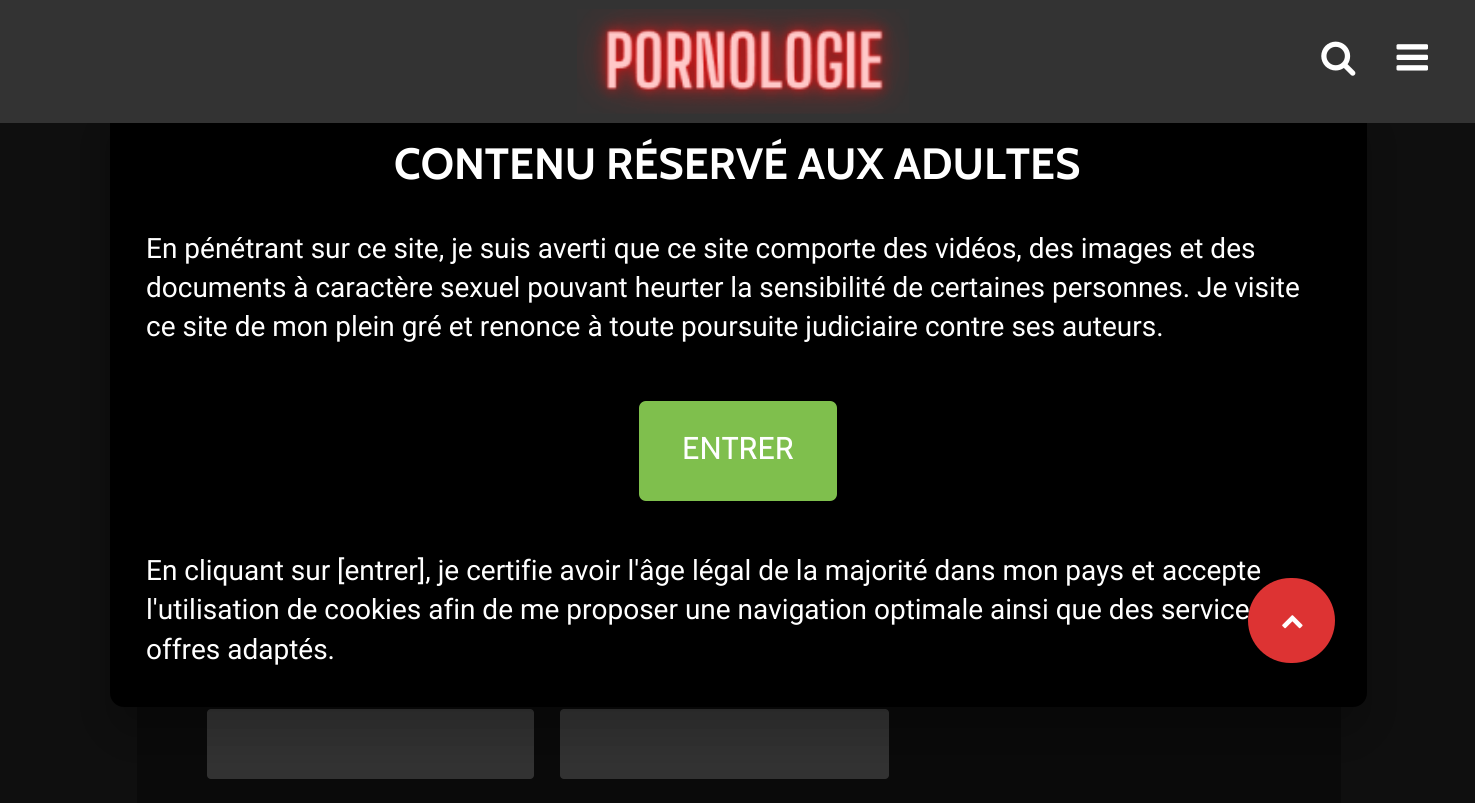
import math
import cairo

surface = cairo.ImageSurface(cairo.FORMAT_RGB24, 1475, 803)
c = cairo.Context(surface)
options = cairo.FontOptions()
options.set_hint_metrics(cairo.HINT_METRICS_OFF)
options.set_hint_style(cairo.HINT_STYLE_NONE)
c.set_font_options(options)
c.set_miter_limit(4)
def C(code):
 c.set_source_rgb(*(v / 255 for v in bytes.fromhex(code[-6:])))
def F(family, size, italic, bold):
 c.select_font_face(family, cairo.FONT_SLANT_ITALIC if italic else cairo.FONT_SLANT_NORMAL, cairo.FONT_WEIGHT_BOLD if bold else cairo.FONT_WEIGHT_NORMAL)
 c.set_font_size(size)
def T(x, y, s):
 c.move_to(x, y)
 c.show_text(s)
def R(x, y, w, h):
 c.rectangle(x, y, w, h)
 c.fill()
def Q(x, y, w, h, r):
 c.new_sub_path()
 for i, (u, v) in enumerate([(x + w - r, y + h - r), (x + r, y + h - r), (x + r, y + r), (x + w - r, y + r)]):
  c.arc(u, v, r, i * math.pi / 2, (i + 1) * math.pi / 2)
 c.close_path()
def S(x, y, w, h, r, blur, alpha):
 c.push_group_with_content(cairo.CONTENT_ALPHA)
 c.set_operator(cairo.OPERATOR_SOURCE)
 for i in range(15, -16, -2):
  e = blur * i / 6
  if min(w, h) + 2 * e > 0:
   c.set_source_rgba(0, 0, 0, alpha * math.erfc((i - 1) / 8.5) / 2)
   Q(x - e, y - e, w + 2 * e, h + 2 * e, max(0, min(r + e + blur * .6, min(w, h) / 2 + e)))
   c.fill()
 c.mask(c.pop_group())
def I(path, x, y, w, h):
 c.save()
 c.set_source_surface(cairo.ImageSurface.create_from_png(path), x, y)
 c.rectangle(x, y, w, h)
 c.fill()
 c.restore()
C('0f0f0f')
c.paint()
C('0a0a0a')
R(137,707,1204,96)
C('333333')
Q(207,709,327,70,4)
c.fill()
Q(560,709,329,70,4)
c.fill()
C('000000')
S(110,123,1257,610,14,26,.25)
C('000000')
Q(111,97,1255,609,13)
c.fill_preserve()
c.stroke()
C('333333')
R(0,0,1475,123)
I('1.png',577,9,332,105)
I('2.png',1321,41,35,35)
I('3.png',1396,44,32,27)
F('Cabin',43.75,0,1)
C('ffffff')
T(394,179,'CONTENU RÉSERVÉ AUX ADULTES')
F('Roboto',28,0,0)
T(146,258,'En pénétrant sur ce site, je suis averti que ce site comporte des vidéos, des images et des')
T(146,297,'documents à caractère sexuel pouvant heurter la sensibilité de certaines personnes. Je visite')
T(146,336,'ce site de mon plein gré et renonce à toute poursuite judiciaire contre ses auteurs.')
C('7fbf4d')
Q(639,401,198,100,7)
c.fill()
F('Cabin',31.5,0,0)
C('ffffff')
T(682,459,'ENTRER')
F('Roboto',28,0,0)
T(146,580,'En cliquant sur [entrer], je certifie avoir l\'âge légal de la majorité dans mon pays et accepte')
T(146,619,'l\'utilisation de cookies afin de me proposer une navigation optimale ainsi que des service')
T(146,659,'offres adaptés.')
C('dd3333')
Q(1248,578,87,85,42.5)
c.fill()
I('4.png',1282,615,21,14)
surface.write_to_png('o.png')
